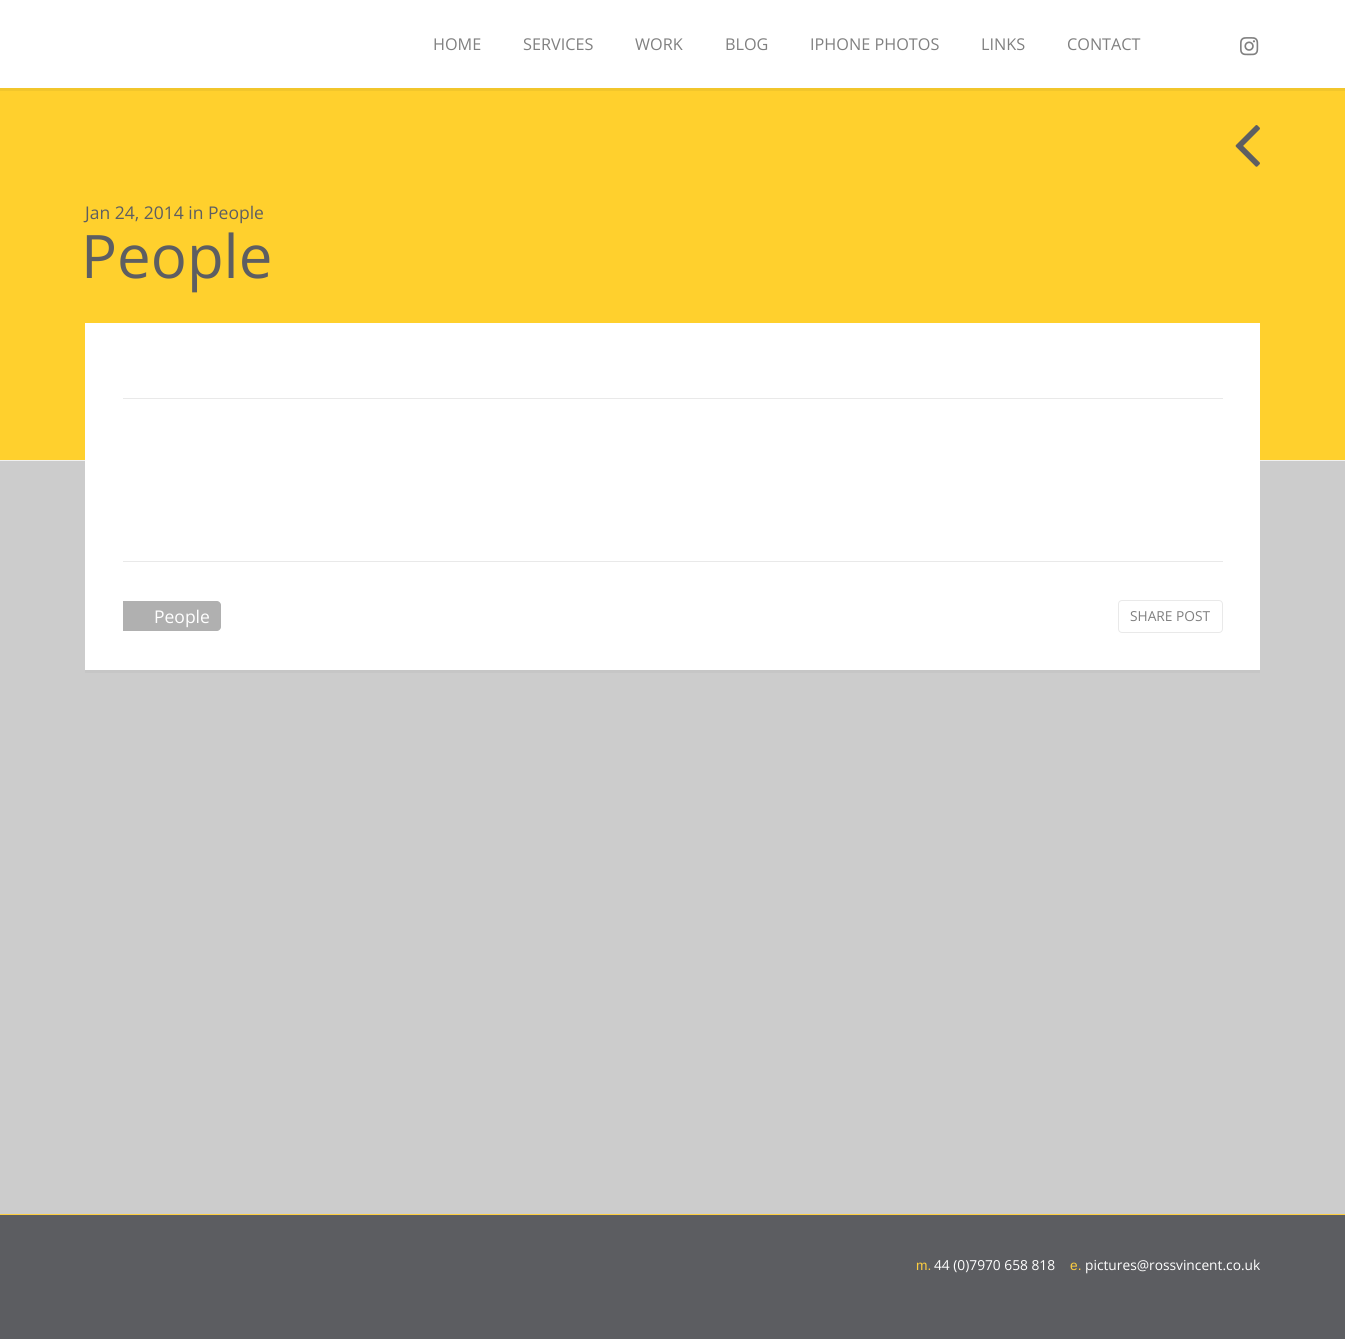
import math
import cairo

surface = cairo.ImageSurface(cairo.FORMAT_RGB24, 1345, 1339)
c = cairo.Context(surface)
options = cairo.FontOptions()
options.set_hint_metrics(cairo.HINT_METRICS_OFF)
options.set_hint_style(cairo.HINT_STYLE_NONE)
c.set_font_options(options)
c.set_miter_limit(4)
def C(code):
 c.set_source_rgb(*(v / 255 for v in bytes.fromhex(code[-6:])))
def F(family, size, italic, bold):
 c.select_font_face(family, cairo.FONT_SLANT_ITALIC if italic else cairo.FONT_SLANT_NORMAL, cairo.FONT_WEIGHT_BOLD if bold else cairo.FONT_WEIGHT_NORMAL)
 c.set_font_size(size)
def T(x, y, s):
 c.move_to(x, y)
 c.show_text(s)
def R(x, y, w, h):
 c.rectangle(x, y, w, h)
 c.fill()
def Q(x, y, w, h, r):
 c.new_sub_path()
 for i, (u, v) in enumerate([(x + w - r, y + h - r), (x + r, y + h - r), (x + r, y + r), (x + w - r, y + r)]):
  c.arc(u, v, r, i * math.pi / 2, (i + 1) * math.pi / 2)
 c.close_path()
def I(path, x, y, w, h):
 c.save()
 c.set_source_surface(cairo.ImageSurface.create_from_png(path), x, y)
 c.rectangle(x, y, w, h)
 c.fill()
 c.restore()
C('cccccc')
c.paint()
C('ffffff')
R(0,0,1345,88)
F('Open Sans',16.25,0,0)
C('808080')
T(433,50,'HOME')
T(523,50,'SERVICES')
T(635,50,'WORK')
T(725,50,'BLOG')
T(810,50,'IPHONE PHOTOS')
T(981,50,'LINKS')
T(1067,50,'CONTACT')
I('1.png',1240,37,19,19)
C('f0f0f0')
R(0,460,1345,1)
C('ffd02d')
R(0,91,1345,369)
C('f2c62b')
R(0,88,1345,3)
I('2.png',1235,125,25,42)
F('Open Sans',17.5,0,0)
C('5d5e62')
T(85,219,'Jan 24, 2014 in People')
F('Open Sans',60,0,0)
T(81,278,'People')
C('c6c6c6')
R(85,670,1175,3)
C('ffffff')
R(85,323,1175,347)
C('e9e9e9')
R(123,398,1100,1)
R(123,561,1100,1)
C('b0b0b0')
c.new_path()
c.move_to(123,601)
c.line_to(217,601)
c.curve_to(219,601,221,603,221,605)
c.line_to(221,627)
c.curve_to(221,629,219,631,217,631)
c.line_to(123,631)
c.close_path()
c.fill()
F('Open Sans',17.5,0,0)
C('ffffff')
T(154,623,'People')
Q(1118.5,600.5,104,32,3.5)
C('e9e9e9')
c.set_line_width(1)
c.stroke()
F('Open Sans',13.75,0,0)
C('808080')
T(1130,621,'SHARE POST')
C('5c5d61')
R(0,1215,1345,124)
C('fdce3f')
R(0,1214,1345,1)
F('Liberation Sans',13.75,0,0)
T(916,1270,'m.')
F('Open Sans',13.75,0,0)
C('ffffff')
T(934,1270,'44 (0)7970 658 818')
F('Liberation Sans',13.75,0,0)
C('fdce3f')
T(1070,1270,'e.')
F('Open Sans',13.75,0,0)
C('ffffff')
T(1085,1270,'pictures@rossvincent.co.uk')
surface.write_to_png('o.png')
